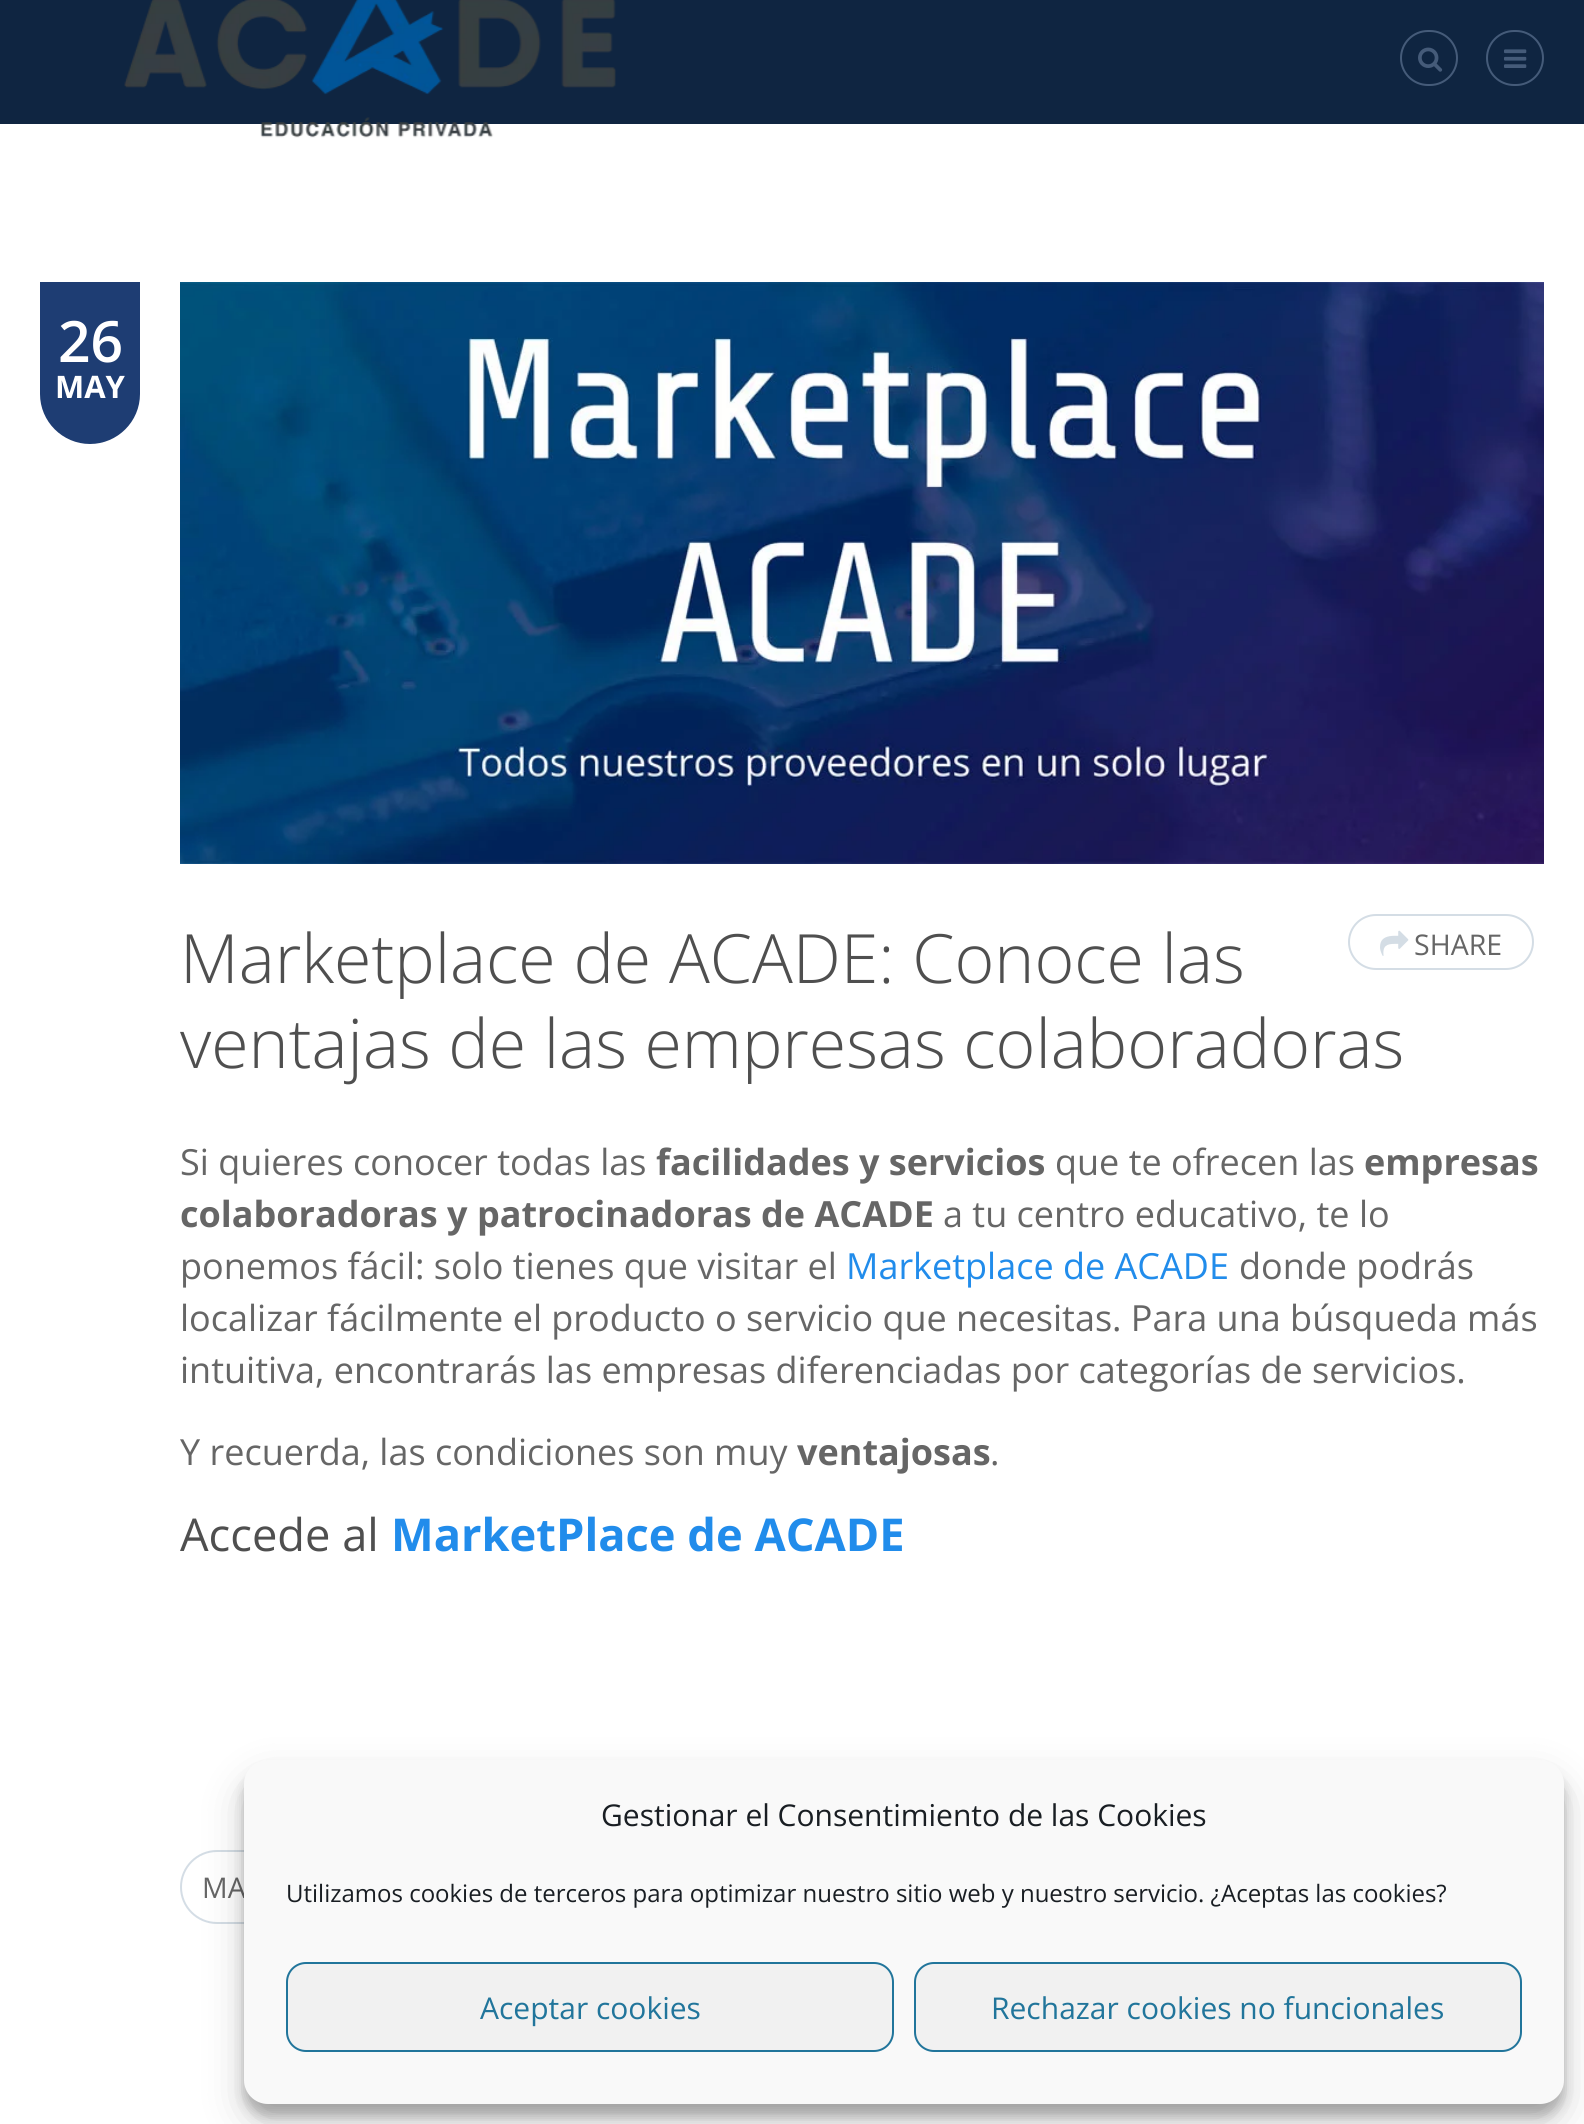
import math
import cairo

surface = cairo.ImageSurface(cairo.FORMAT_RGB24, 1584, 2124)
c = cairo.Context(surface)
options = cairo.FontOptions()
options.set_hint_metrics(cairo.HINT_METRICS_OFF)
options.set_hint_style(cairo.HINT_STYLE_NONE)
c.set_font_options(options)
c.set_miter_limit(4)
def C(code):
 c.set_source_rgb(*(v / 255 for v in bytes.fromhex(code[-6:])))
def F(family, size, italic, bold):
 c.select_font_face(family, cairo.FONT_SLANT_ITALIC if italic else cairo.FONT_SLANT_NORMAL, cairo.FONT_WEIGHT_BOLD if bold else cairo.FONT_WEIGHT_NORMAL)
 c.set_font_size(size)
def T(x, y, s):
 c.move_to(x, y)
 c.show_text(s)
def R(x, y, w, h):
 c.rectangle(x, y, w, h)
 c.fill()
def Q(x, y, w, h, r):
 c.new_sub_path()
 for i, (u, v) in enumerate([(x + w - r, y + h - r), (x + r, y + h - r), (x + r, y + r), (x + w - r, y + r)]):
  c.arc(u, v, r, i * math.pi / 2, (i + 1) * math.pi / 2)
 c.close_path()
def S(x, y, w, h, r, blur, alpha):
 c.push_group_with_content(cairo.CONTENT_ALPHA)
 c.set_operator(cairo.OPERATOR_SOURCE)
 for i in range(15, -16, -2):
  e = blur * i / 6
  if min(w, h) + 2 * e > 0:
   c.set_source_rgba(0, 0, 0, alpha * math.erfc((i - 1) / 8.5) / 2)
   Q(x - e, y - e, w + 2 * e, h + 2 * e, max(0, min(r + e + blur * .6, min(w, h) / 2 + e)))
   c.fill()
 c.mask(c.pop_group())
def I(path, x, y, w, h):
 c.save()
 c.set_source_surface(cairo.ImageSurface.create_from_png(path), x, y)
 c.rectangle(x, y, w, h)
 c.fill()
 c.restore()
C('ffffff')
c.paint()
C('0f2541')
R(0,0,1584,124)
I('1.png',124,0,492,138)
Q(1401,31,56,54,27)
C('455b79')
c.stroke()
I('2.png',1418,47,25,25)
Q(1487,31,56,54,27)
c.stroke()
I('3.png',1504,49,23,19)
C('1e3d73')
c.new_path()
c.move_to(40,282)
c.line_to(140,282)
c.line_to(140,394)
c.curve_to(140,421.5,117.5,444,90,444)
c.curve_to(62.5,444,40,421.5,40,394)
c.close_path()
c.fill()
F('Open Sans SemiBold',57,0,0)
C('ffffff')
T(58,362,'26')
F('Open Sans',31,0,1)
T(55,398,'MAY')
I('4.png',180,282,1364,582)
F('Open Sans Light',68,0,0)
C('4f4f4f')
T(180,983,'Marketplace de ACADE: Conoce las')
T(180,1068,'ventajas de las empresas colaboradoras')
Q(1349,915,184,54,27)
C('d4dde5')
c.stroke()
I('5.png',1380,930,29,26)
F('Open Sans',28.5,0,0)
C('666666')
T(1414,955,'SHARE')
F('Open Sans',36,0,0)
T(180,1175,'Si quieres conocer todas las')
F('Open Sans',36,0,1)
T(656,1175,'facilidades y servicios')
F('Open Sans',36,0,0)
T(1055,1175,'que te ofrecen las')
F('Open Sans',36,0,1)
T(1364,1175,'empresas')
T(180,1227,'colaboradoras y patrocinadoras de ACADE')
F('Open Sans',36,0,0)
T(943,1227,'a tu centro educativo, te lo')
T(180,1279,'ponemos fácil: solo tienes que visitar el')
C('218ceb')
T(846,1279,'Marketplace de ACADE')
C('666666')
T(1239,1279,'donde podrás')
T(180,1331,'localizar fácilmente el producto o servicio que necesitas. Para una búsqueda más')
T(180,1383,'intuitiva, encontrarás las empresas diferenciadas por categorías de servicios.')
T(180,1465,'Y recuerda, las condiciones son muy')
F('Open Sans',36,0,1)
T(797,1465,'ventajosas')
F('Open Sans',36,0,0)
T(990,1465,'.')
F('Open Sans',45.25,0,0)
C('4f4f4f')
T(180,1551,'Accede al')
F('Open Sans',45.25,0,1)
C('218ceb')
T(391,1551,'MarketPlace de ACADE')
Q(181,1851,332,72,36)
C('d4dde5')
c.stroke()
F('Open Sans',28.5,0,0)
C('666666')
T(202,1898,'MA')
C('000000')
S(244,1772,1320,344,24,6,.23)
S(244,1780,1320,344,24,20,.19)
C('f9f9f9')
Q(245,1761,1318,342,23)
c.fill_preserve()
c.stroke()
F('Open Sans',30,0,0)
C('191e23')
T(601,1826,'Gestionar el Consentimiento de las Cookies')
F('Open Sans',24,0,0)
T(286,1902,'Utilizamos cookies de terceros para optimizar nuestro sitio web y nuestro servicio. ¿Aceptas las cookies?')
C('f1f1f1')
Q(287,1963,606,88,19)
c.fill_preserve()
C('21759b')
c.stroke()
F('Open Sans',30,0,0)
T(480,2019,'Aceptar cookies')
C('f1f1f1')
Q(915,1963,606,88,19)
c.fill_preserve()
C('21759b')
c.stroke()
T(991,2019,'Rechazar cookies no funcionales')
surface.write_to_png('o.png')
